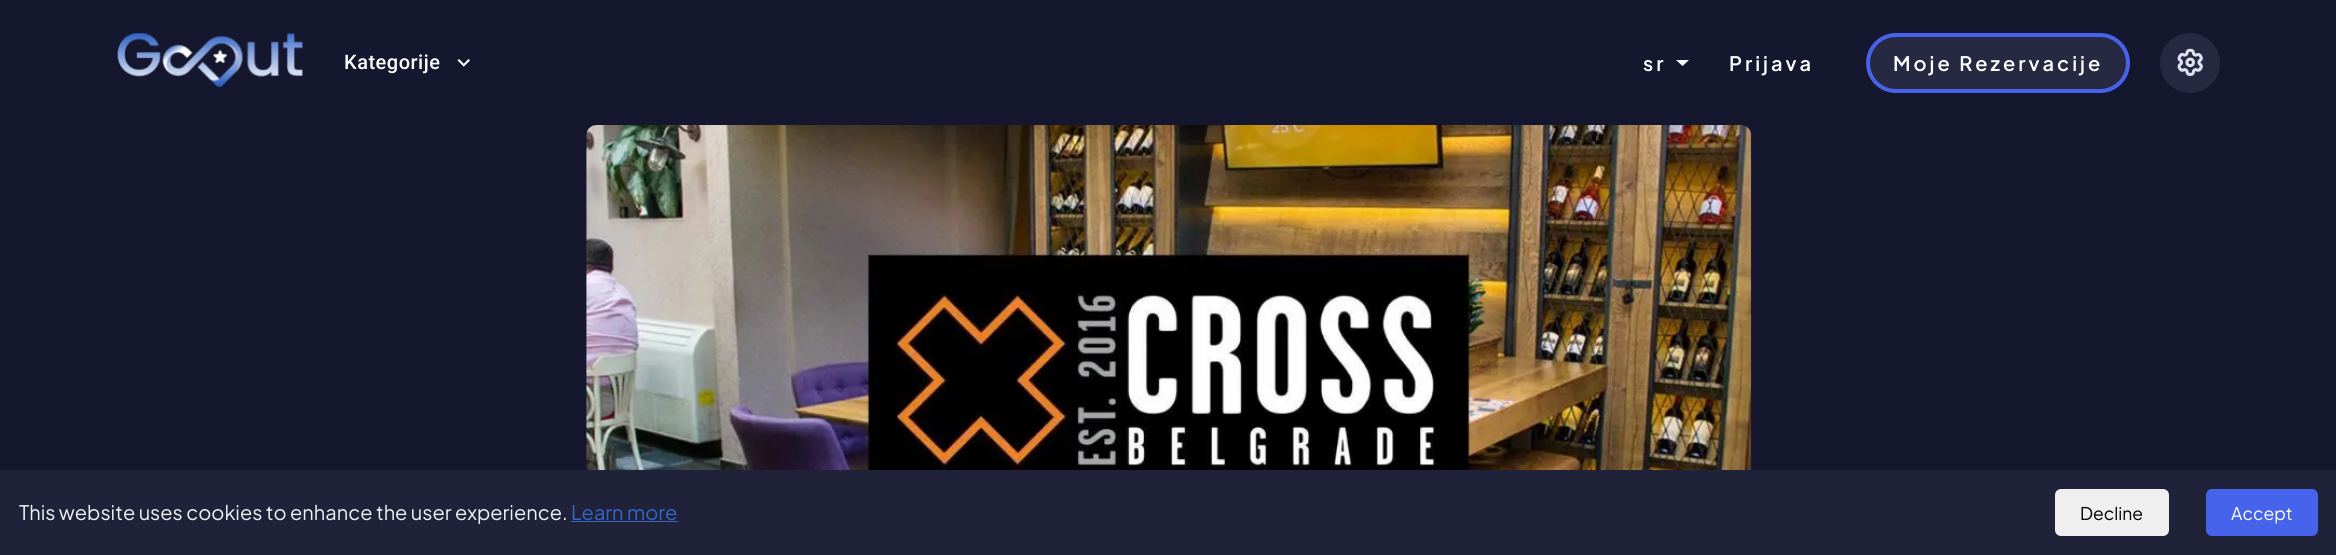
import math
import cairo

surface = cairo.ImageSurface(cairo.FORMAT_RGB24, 2336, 555)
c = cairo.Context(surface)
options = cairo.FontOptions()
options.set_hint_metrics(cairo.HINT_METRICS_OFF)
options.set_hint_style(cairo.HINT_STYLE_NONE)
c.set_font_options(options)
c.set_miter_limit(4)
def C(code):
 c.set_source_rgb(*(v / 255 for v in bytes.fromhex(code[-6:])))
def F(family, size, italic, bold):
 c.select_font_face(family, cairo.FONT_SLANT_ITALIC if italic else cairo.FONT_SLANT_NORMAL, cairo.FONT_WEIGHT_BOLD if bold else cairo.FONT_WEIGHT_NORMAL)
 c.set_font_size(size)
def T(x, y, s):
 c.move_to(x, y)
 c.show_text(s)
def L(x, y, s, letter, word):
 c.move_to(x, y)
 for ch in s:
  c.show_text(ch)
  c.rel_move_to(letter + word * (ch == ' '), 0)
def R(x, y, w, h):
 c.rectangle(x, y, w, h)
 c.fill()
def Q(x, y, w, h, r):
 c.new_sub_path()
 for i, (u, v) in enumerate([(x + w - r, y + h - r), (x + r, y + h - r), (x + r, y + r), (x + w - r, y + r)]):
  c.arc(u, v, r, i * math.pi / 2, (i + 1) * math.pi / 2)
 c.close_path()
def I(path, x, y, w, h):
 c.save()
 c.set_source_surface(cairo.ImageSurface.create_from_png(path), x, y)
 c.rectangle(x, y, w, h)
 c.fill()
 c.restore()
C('15172f')
c.paint()
I('1.png',117,33,186,55)
F('Roboto Medium',20,0,0)
C('ffffff')
L(344,69,'Kategorije',.5,0)
I('2.png',457,59,13,8)
F('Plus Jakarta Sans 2 SemiBold',20,0,0)
L(1643,71,'sr',3,0)
c.new_path()
c.move_to(1676,60)
c.line_to(1682.5,66)
c.line_to(1689,60)
c.close_path()
c.fill()
F('Plus Jakarta Sans SemiBold',20,0,0)
L(1729,71,'Prijava',3,0)
C('272841')
Q(1868,35,260,56,28)
c.fill_preserve()
C('4763eb')
c.set_line_width(4)
c.stroke()
C('ffffff')
L(1893,71,'Moje Rezervacije',3,0)
C('272841')
c.new_path()
c.arc(2190,63,30,0,2 * math.pi)
c.fill()
I('3.png',2177,48,26,28)
I('4.png',586,125,1166,345)
C('202239')
R(0,470,2336,85)
F('Plus Jakarta Sans',20,0,0)
C('f1f0f4')
T(19,520,'This website uses cookies to enhance the user experience.')
C('3566c5')
T(571,520,'Learn more')
R(571,521,107,1)
C('efefef')
Q(2055,489,114,47,6)
c.fill()
F('Plus Jakarta Sans',17.5,0,0)
C('000000')
T(2080,520,'Decline')
C('4663eb')
Q(2206,489,112,47,6)
c.fill()
C('ffffff')
T(2231,520,'Accept')
surface.write_to_png('o.png')
